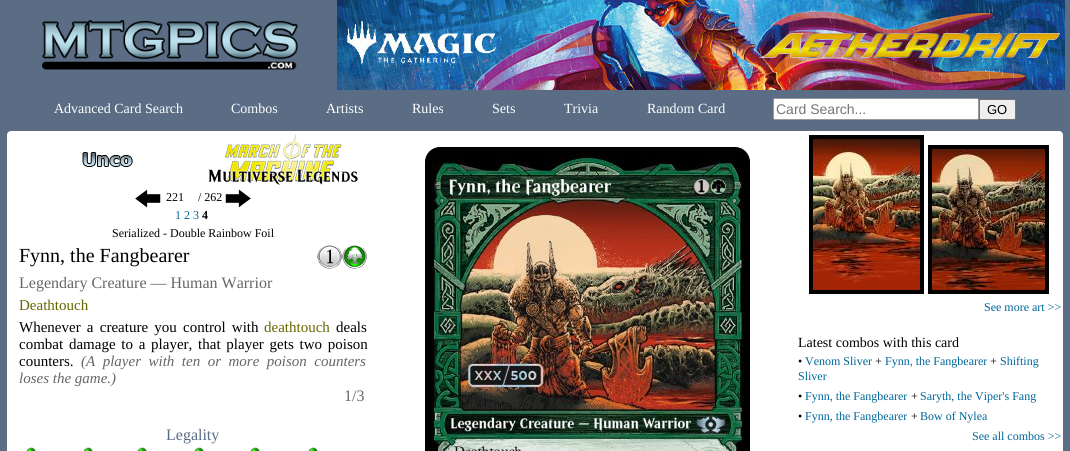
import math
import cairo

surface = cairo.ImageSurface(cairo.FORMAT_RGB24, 1070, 451)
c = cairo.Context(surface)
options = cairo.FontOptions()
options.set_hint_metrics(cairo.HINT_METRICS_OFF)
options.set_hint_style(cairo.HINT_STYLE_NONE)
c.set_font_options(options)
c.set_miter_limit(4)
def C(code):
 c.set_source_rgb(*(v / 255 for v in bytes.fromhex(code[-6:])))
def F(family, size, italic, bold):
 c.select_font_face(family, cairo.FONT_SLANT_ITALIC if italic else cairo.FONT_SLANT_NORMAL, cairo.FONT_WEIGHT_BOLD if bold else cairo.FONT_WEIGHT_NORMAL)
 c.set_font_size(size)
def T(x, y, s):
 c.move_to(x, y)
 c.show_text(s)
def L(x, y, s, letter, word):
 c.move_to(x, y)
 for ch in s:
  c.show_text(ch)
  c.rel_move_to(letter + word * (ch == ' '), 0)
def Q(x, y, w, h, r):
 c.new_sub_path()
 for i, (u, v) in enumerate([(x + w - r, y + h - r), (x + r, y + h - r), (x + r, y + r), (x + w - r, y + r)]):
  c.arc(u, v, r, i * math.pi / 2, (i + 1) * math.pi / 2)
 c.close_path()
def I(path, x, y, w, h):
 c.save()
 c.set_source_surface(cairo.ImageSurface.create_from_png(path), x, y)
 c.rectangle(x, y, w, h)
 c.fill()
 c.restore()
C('5a6d85')
c.paint()
I('1.png',42,20,256,50)
I('2.png',337,0,728,90)
F('Liberation Serif',14,0,0)
C('ffffff')
T(54,113,'Advanced Card Search')
T(231,113,'Combos')
T(326,113,'Artists')
T(412,113,'Rules')
T(492,113,'Sets')
T(564,113,'Trivia')
T(647,113,'Random Card')
Q(773.5,98.5,205,21,1.5)
c.fill_preserve()
C('999999')
c.set_line_width(1)
c.stroke()
F('Liberation Sans',14,0,0)
C('757575')
T(776,114,'Card Search...')
C('efefef')
Q(979.5,99.5,36,20,1.5)
c.fill_preserve()
C('767676')
c.stroke()
F('Liberation Sans',13,0,0)
C('000000')
T(987,114,'GO')
C('ffffff')
Q(7,131,1056,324,4)
c.fill()
I('3.png',82,152,51,15)
I('4.png',208,134,150,51)
I('5.png',135,189,26,19)
F('Liberation Serif',12,0,0)
C('000000')
T(166,201,'221')
T(198,201,'/ 262')
I('6.png',225,189,26,19)
C('006699')
T(175,219,'1 2 3')
F('Liberation Serif',12,0,1)
C('000000')
T(202,219,'4')
F('Liberation Serif',12,0,0)
T(112,237,'Serialized - Double Rainbow Foil')
F('Liberation Serif',20,0,0)
T(19,262,'Fynn, the Fangbearer')
I('7.png',317,244,25,25)
I('8.png',342,244,25,25)
F('Liberation Serif',16,0,0)
C('666666')
T(19,288,'Legendary Creature — Human Warrior')
F('Liberation Serif',15,0,0)
C('666600')
T(19,310,'Deathtouch')
C('000000')
L(19,332,'Whenever a creature you control with',0,2.5)
C('666600')
T(264,332,'deathtouch')
C('000000')
T(336,332,'deals')
L(19,349,'combat damage to a player, that player gets two poison',0,2)
T(19,366,'counters.')
F('Liberation Serif',15,1,0)
C('666666')
L(81,366,'(A player with ten or more poison counters',0,3.75)
T(19,383,'loses the game.)')
F('Liberation Serif',16,0,0)
T(344,401,'1/3')
C('5a6d85')
T(166,440,'Legality')
I('9.png',26,447,10,4)
I('9.png',83,447,10,4)
I('9.png',137,447,10,4)
I('9.png',194,447,10,4)
I('9.png',250,447,10,4)
I('9.png',308,447,10,4)
C('000000')
Q(425.5,147.5,324,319,14.5)
c.fill_preserve()
c.stroke()
I('10.png',432,153,312,298)
c.rectangle(811,137,111,155)
c.set_line_width(4)
c.stroke()
I('11.png',813,139,107,151)
c.rectangle(930,147,117,145)
c.stroke()
I('12.png',932,149,113,141)
F('Liberation Serif',12,0,0)
C('006699')
T(984,311,'See more art >>')
F('Liberation Serif',14,0,0)
C('000000')
T(798,347,'Latest combos with this card')
F('Liberation Serif',12,0,0)
T(798,365,'•')
C('006699')
T(805,365,'Venom Sliver')
C('000000')
T(875,365,'+')
C('006699')
T(885,365,'Fynn, the Fangbearer')
C('000000')
T(990,365,'+')
C('006699')
T(1000,365,'Shifting')
T(798,380,'Sliver')
C('000000')
T(798,400,'•')
C('006699')
T(805,400,'Fynn, the Fangbearer')
C('000000')
T(911,400,'+')
C('006699')
T(920,400,'Saryth, the Viper\'s Fang')
C('000000')
T(798,420,'•')
C('006699')
T(805,420,'Fynn, the Fangbearer')
C('000000')
T(911,420,'+')
C('006699')
T(920,420,'Bow of Nylea')
T(972,440,'See all combos >>')
surface.write_to_png('o.png')
